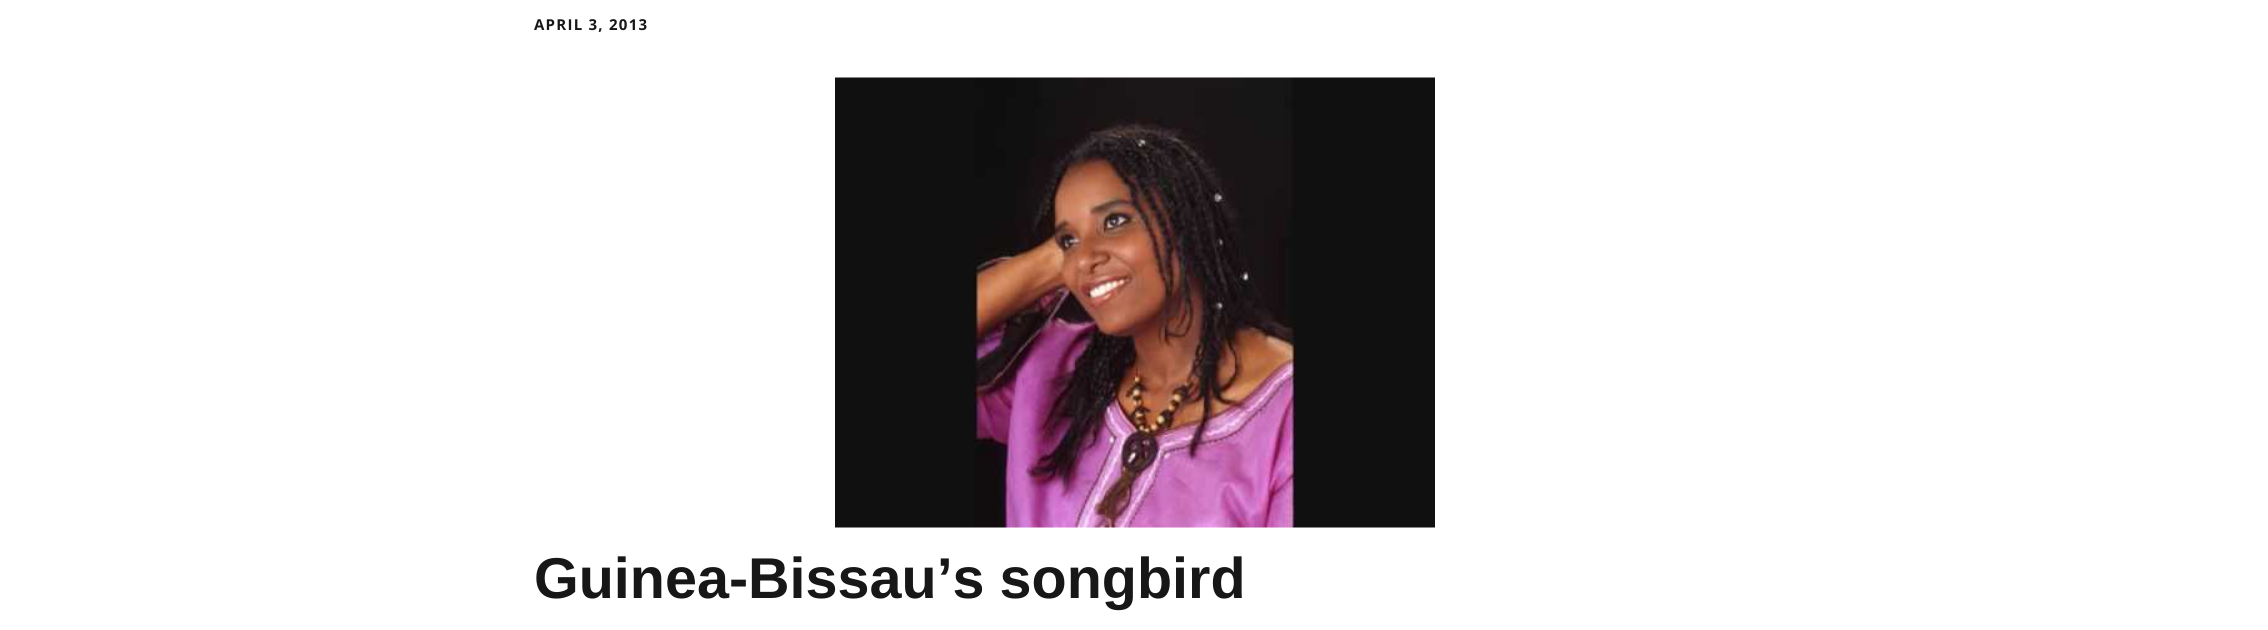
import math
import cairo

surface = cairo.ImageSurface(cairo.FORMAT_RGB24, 2268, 630)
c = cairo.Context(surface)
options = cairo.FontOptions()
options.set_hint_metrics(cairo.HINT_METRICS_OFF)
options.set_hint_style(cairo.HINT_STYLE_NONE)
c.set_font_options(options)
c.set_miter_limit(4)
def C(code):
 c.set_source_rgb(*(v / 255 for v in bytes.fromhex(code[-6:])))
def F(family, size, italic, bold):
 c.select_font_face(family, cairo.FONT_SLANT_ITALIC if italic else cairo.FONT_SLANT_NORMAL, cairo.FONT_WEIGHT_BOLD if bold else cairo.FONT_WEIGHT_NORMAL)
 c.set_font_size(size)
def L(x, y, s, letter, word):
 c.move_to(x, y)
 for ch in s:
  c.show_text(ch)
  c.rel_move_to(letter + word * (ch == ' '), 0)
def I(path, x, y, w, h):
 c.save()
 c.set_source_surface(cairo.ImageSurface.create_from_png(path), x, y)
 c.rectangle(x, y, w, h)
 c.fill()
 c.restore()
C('ffffff')
c.paint()
F('Open Sans',15,0,1)
C('171717')
L(534,30,'APRIL 3, 2013',1.25,0)
I('1.png',835,77,600,451)
F('Liberation Sans',57.5,0,1)
L(534,598,'Guinea-Bissau’s songbird',0,-1)
surface.write_to_png('o.png')
